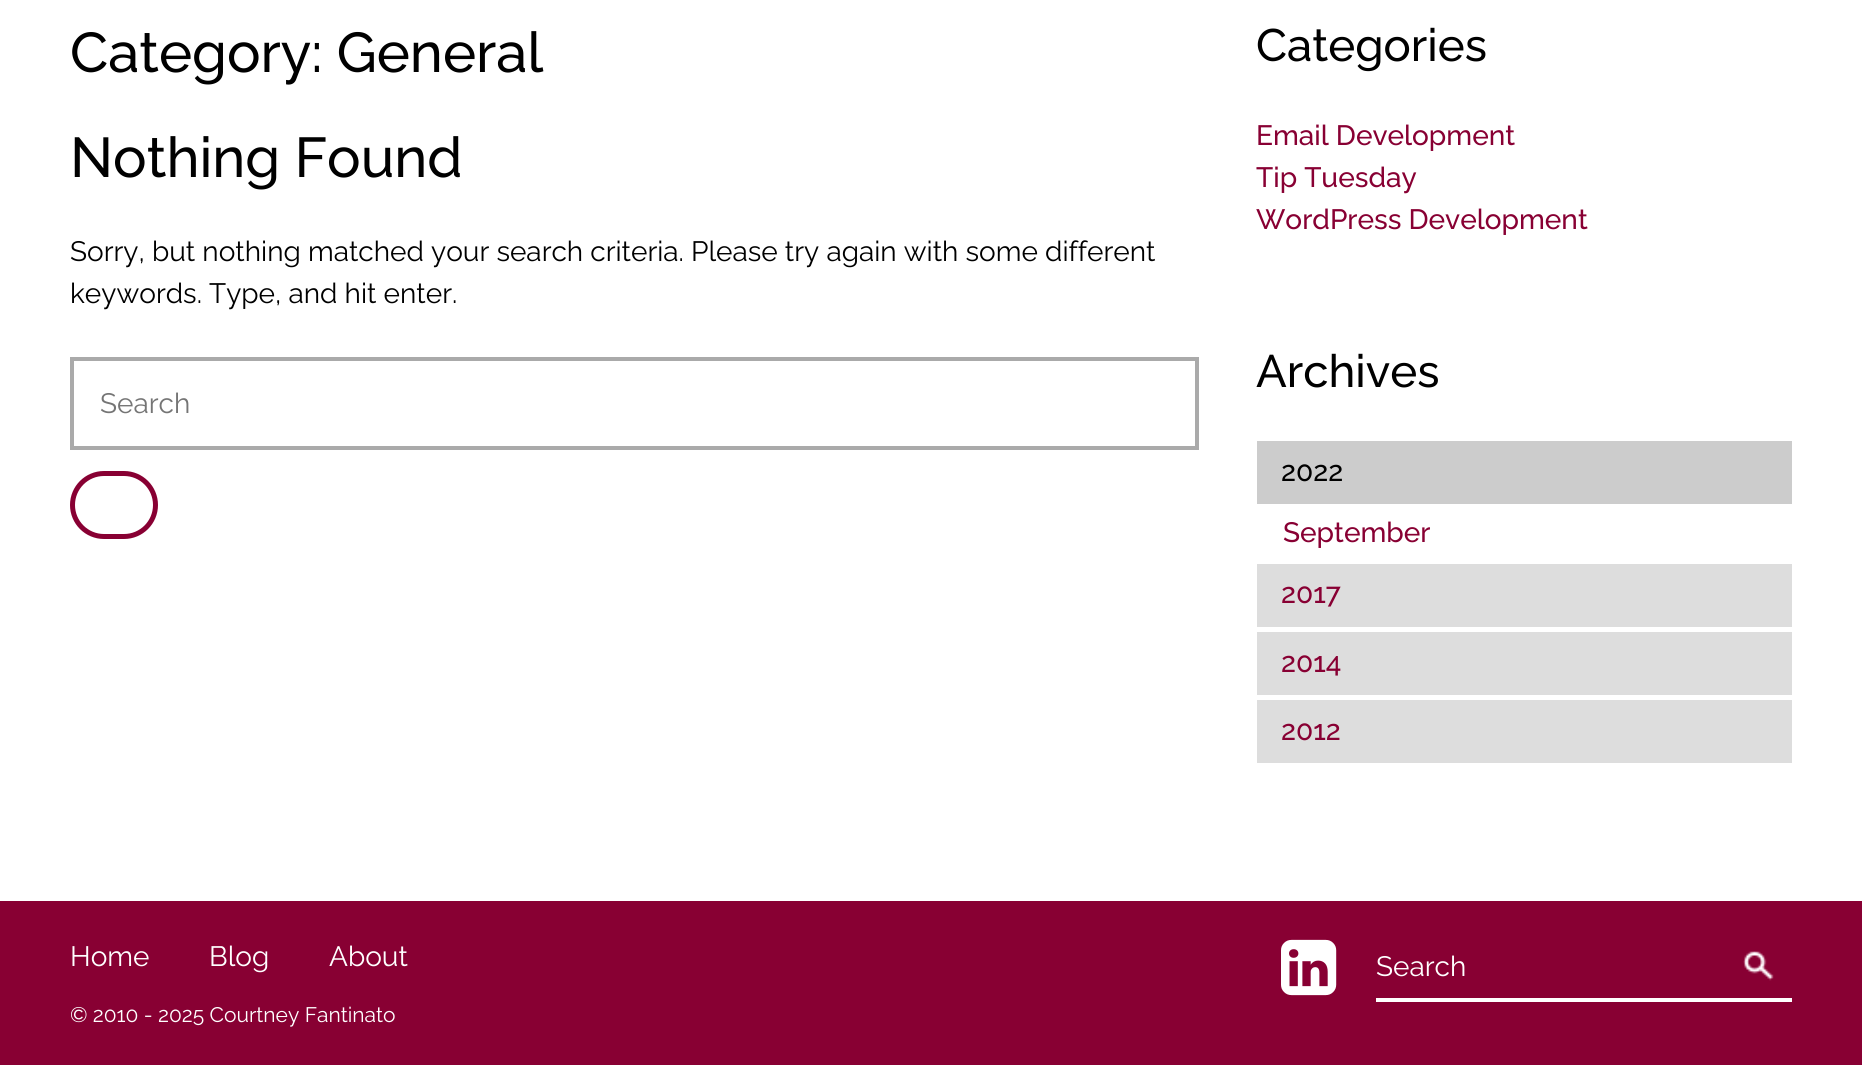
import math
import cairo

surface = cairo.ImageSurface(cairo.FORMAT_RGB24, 1862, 1065)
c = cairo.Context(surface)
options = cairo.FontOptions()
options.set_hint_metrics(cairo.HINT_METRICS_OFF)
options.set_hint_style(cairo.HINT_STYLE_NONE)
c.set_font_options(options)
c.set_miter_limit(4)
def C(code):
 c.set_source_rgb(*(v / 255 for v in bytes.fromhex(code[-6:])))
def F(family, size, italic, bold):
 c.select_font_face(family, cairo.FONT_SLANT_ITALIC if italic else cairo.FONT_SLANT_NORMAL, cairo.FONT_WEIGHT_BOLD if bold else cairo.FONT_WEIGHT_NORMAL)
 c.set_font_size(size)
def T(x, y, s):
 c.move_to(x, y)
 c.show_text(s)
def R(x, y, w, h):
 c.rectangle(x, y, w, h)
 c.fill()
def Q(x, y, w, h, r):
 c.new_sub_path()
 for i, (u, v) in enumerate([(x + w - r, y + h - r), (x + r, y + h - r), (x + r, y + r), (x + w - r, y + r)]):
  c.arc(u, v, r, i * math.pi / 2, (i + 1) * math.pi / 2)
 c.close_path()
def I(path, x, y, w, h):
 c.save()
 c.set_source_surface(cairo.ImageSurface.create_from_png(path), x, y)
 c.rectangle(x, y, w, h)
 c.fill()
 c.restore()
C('ffffff')
c.paint()
F('Raleway Medium',56,0,0)
C('000000')
T(70,72,'Category: General')
T(70,177,'Nothing Found')
F('Raleway',28,0,0)
T(70,261,'Sorry, but nothing matched your search criteria. Please try again with some different')
T(70,303,'keywords. Type, and hit enter.')
c.rectangle(72,359,1125,89)
C('aaaaaa')
c.set_line_width(4)
c.stroke()
C('757575')
T(100,413,'Search')
Q(72.5,473.5,83,63,31.5)
C('880033')
c.set_line_width(5)
c.stroke()
F('Raleway Medium',45.5,0,0)
C('000000')
T(1256,61,'Categories')
F('Raleway Medium',28,0,0)
C('880033')
T(1256,145,'Email Development')
T(1256,187,'Tip Tuesday')
T(1256,229,'WordPress Development')
F('Raleway Medium',45.5,0,0)
C('000000')
T(1256,387,'Archives')
C('cccccc')
R(1257,441,535,63)
F('Raleway Medium',28,0,0)
C('000000')
T(1281,481,'2022')
C('880033')
T(1283,542,'September')
C('dddddd')
R(1257,564,535,63)
C('880033')
T(1281,603,'2017')
C('dddddd')
R(1257,632,535,63)
C('880033')
T(1281,672,'2014')
C('dddddd')
R(1257,700,535,63)
C('880033')
T(1281,740,'2012')
R(0,901,1862,164)
F('Raleway',28,0,0)
C('ffffff')
T(70,966,'Home')
T(209,966,'Blog')
T(329,966,'About')
F('Raleway',21,0,0)
T(70,1022,'© 2010 - 2025 Courtney Fantinato')
I('1.png',1281,939,56,57)
R(1376,998,416,4)
F('Raleway',28,0,0)
T(1376,976,'Search')
I('2.png',1743,951,31,30)
surface.write_to_png('o.png')
